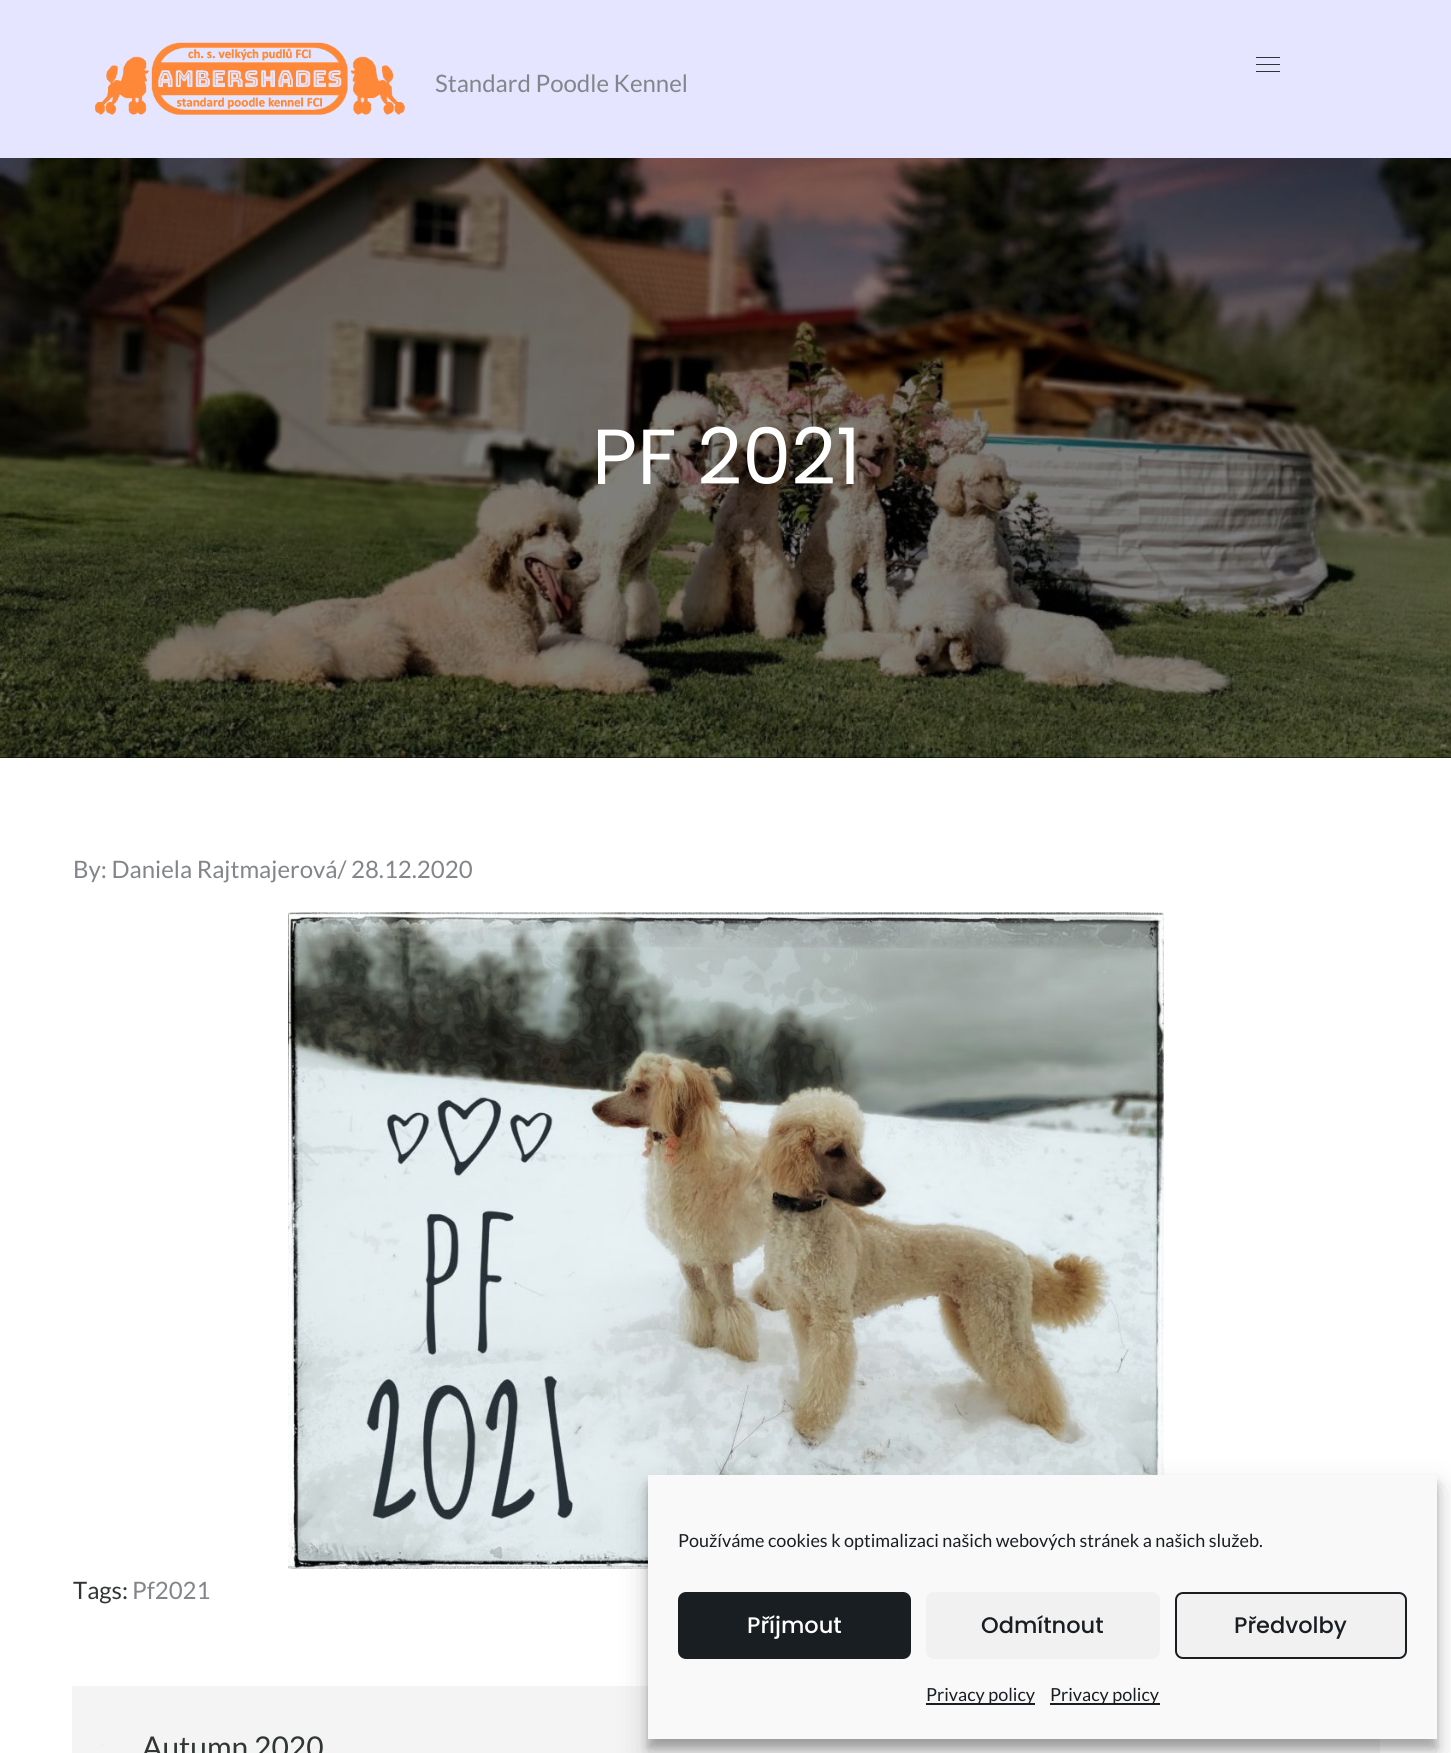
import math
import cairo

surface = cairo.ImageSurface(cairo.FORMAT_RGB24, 1451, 1753)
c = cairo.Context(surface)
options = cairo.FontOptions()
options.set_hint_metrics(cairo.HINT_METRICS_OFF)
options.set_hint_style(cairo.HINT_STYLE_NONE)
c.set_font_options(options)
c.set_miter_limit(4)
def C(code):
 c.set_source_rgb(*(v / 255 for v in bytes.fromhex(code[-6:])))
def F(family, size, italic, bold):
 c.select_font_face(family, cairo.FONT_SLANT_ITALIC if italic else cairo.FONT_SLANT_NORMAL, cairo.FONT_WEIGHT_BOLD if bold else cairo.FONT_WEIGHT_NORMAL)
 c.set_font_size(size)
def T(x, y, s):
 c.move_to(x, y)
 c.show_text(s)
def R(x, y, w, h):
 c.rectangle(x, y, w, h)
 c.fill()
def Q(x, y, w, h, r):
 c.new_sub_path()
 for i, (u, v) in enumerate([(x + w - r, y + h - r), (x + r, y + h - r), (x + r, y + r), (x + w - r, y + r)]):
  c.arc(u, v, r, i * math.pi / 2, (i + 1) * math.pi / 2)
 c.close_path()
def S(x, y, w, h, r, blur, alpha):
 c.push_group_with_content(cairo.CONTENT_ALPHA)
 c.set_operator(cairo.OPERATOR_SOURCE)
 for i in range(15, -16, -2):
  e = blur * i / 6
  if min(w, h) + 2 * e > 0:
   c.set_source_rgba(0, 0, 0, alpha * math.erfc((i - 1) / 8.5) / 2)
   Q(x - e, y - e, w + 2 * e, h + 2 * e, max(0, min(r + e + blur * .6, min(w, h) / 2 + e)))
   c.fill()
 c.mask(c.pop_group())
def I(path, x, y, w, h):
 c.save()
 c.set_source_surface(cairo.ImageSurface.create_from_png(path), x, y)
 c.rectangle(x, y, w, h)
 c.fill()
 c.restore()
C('ffffff')
c.paint()
C('e5e5ff')
R(0,0,1451,158)
C('333333')
R(1256,57,24,1)
R(1256,64,24,1)
R(1256,71,24,1)
I('1.png',95,42,310,73)
F('Lato',24,0,0)
C('82868b')
T(435,92,'Standard Poodle Kennel')
C('000000')
R(0,757,1451,1)
I('2.png',0,158,1451,600)
F('Poppins',78,0,0)
C('ffffff')
T(592,484,'PF 2021')
F('Lato',24,0,0)
C('82868b')
T(73,878,'By: Daniela Rajtmajerová/ 28.12.2020')
I('3.png',288,912,876,657)
C('2f3633')
T(73,1599,'Tags:')
C('82868b')
T(132,1599,'Pf2021')
C('f4f4f4')
R(72,1686,1308,67)
I('4.png',102,1744,1,2)
F('Lato',30,0,0)
C('2f3633')
T(142,1758,'Autumn 2020')
C('000000')
S(648,1484,789,264,0,4.5,.23)
S(648,1490,789,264,0,15,.19)
C('f9f9f9')
R(648,1475,789,264)
F('Lato',18,0,0)
C('191e23')
T(678,1547,'Používáme cookies k optimalizaci našich webových stránek a našich služeb.')
Q(679,1593,231,65,7)
c.fill_preserve()
c.stroke()
F('Poppins Medium',22.5,0,0)
C('ffffff')
T(747,1633,'Příjmout')
C('f1f1f1')
Q(926,1592,234,67,8)
c.fill()
C('191e23')
T(981,1633,'Odmítnout')
C('f1f1f1')
Q(1176,1593,230,65,7)
c.fill_preserve()
C('191e23')
c.stroke()
T(1234,1633,'Předvolby')
R(926,1703,109,2)
F('Lato',18,0,0)
T(926,1701,'Privacy policy')
R(1050,1703,110,2)
T(1050,1701,'Privacy policy')
surface.write_to_png('o.png')
